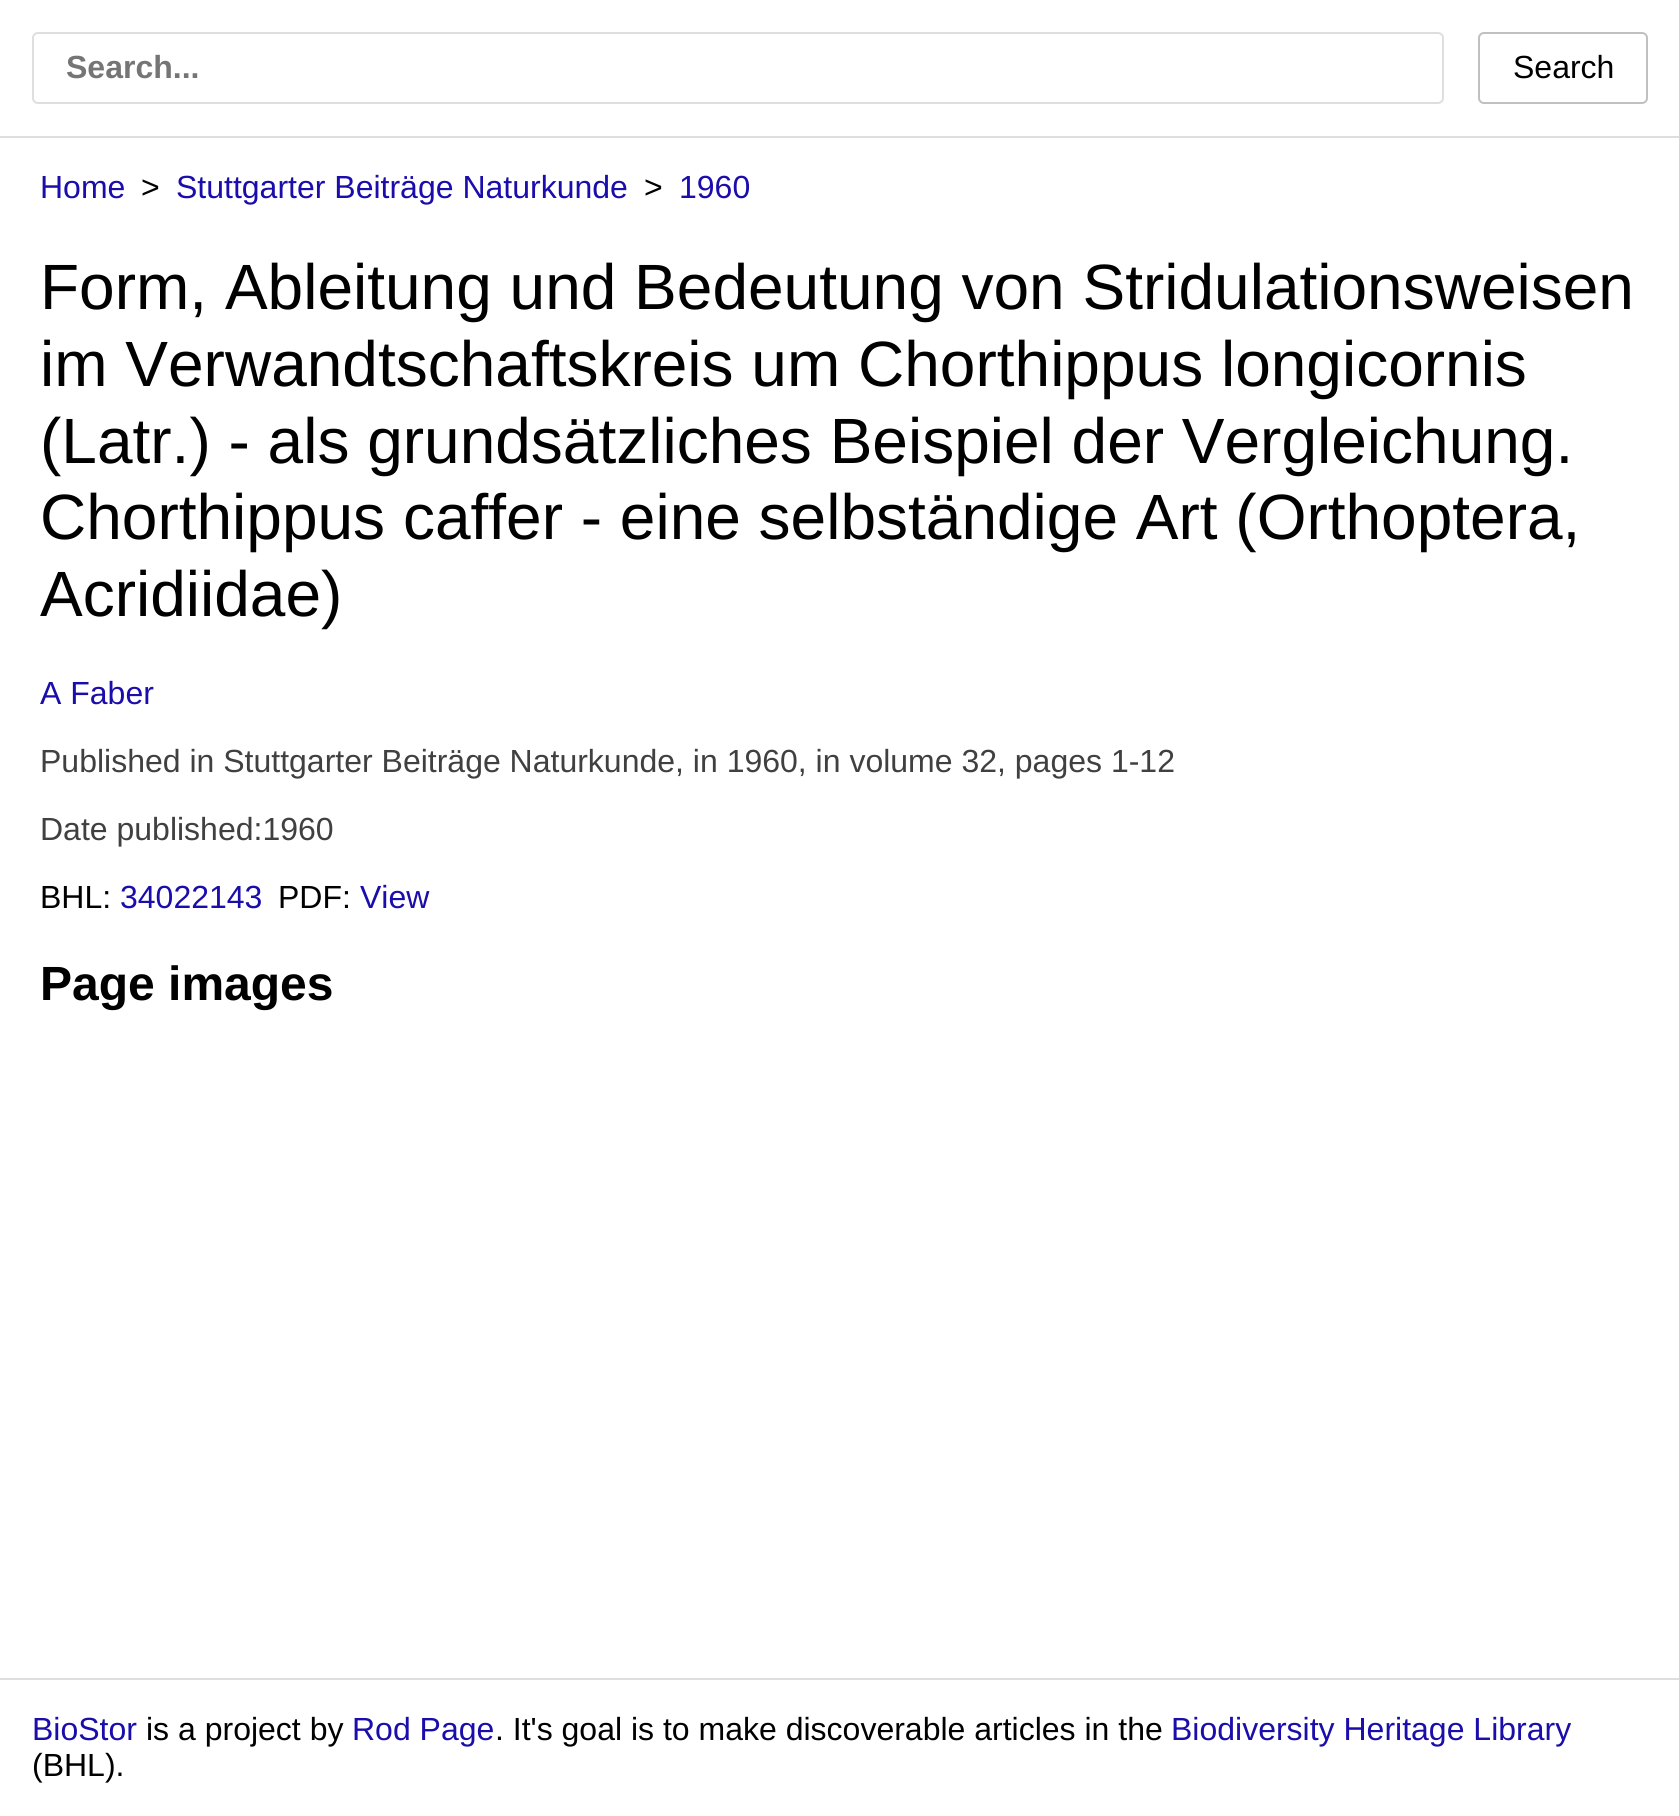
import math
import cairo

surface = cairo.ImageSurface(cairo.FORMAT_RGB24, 1679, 1816)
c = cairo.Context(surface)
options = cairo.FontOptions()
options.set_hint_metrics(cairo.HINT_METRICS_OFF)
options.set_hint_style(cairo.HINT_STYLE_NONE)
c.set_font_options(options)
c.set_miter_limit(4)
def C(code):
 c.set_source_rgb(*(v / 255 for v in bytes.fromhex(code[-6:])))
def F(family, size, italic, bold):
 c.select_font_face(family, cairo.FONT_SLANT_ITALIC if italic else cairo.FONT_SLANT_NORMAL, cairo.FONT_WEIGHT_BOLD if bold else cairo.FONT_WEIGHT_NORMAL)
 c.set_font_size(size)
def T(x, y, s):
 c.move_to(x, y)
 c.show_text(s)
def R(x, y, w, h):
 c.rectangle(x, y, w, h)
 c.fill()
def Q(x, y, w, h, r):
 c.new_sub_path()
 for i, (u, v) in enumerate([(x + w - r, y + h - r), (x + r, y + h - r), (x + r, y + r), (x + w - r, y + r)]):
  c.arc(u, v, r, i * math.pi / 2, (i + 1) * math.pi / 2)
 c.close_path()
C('ffffff')
c.paint()
C('dedede')
R(0,136,1679,2)
Q(33,33,1410,70,5)
c.stroke()
F('Liberation Sans',32,0,1)
C('757575')
T(66,78,'Search...')
Q(1479,33,168,70,5)
C('c0c0c0')
c.stroke()
F('Liberation Sans',32,0,0)
C('000000')
T(1513,78,'Search')
C('1a0dab')
T(40,198,'Home')
C('000000')
T(141,198,'>')
C('1a0dab')
T(176,198,'Stuttgarter Beiträge Naturkunde')
C('000000')
T(644,198,'>')
C('1a0dab')
T(679,198,'1960')
F('Liberation Sans',64,0,0)
C('000000')
T(40,309,'Form, Ableitung und Bedeutung von Stridulationsweisen')
T(40,386,'im Verwandtschaftskreis um Chorthippus longicornis')
T(40,463,'(Latr.) - als grundsätzliches Beispiel der Vergleichung.')
T(40,539,'Chorthippus caffer - eine selbständige Art (Orthoptera,')
T(40,616,'Acridiidae)')
F('Liberation Sans',32,0,0)
C('1a0dab')
T(40,704,'A Faber')
C('404040')
T(40,772,'Published in Stuttgarter Beiträge Naturkunde, in 1960, in volume 32, pages 1-12')
T(40,840,'Date published:1960')
C('000000')
T(40,908,'BHL:')
C('1a0dab')
T(120,908,'34022143')
C('000000')
T(278,908,'PDF:')
C('1a0dab')
T(360,908,'View')
F('Liberation Sans',48,0,1)
C('000000')
T(40,1000,'Page images')
C('dedede')
R(0,1678,1679,2)
F('Liberation Sans',32,0,0)
C('1a0dab')
T(32,1740,'BioStor')
C('000000')
T(146,1740,'is a project by')
C('1a0dab')
T(352,1740,'Rod Page')
C('000000')
T(495,1740,'. It\'s goal is to make discoverable articles in the')
C('1a0dab')
T(1171,1740,'Biodiversity Heritage Library')
C('000000')
T(32,1776,'(BHL).')
surface.write_to_png('o.png')
